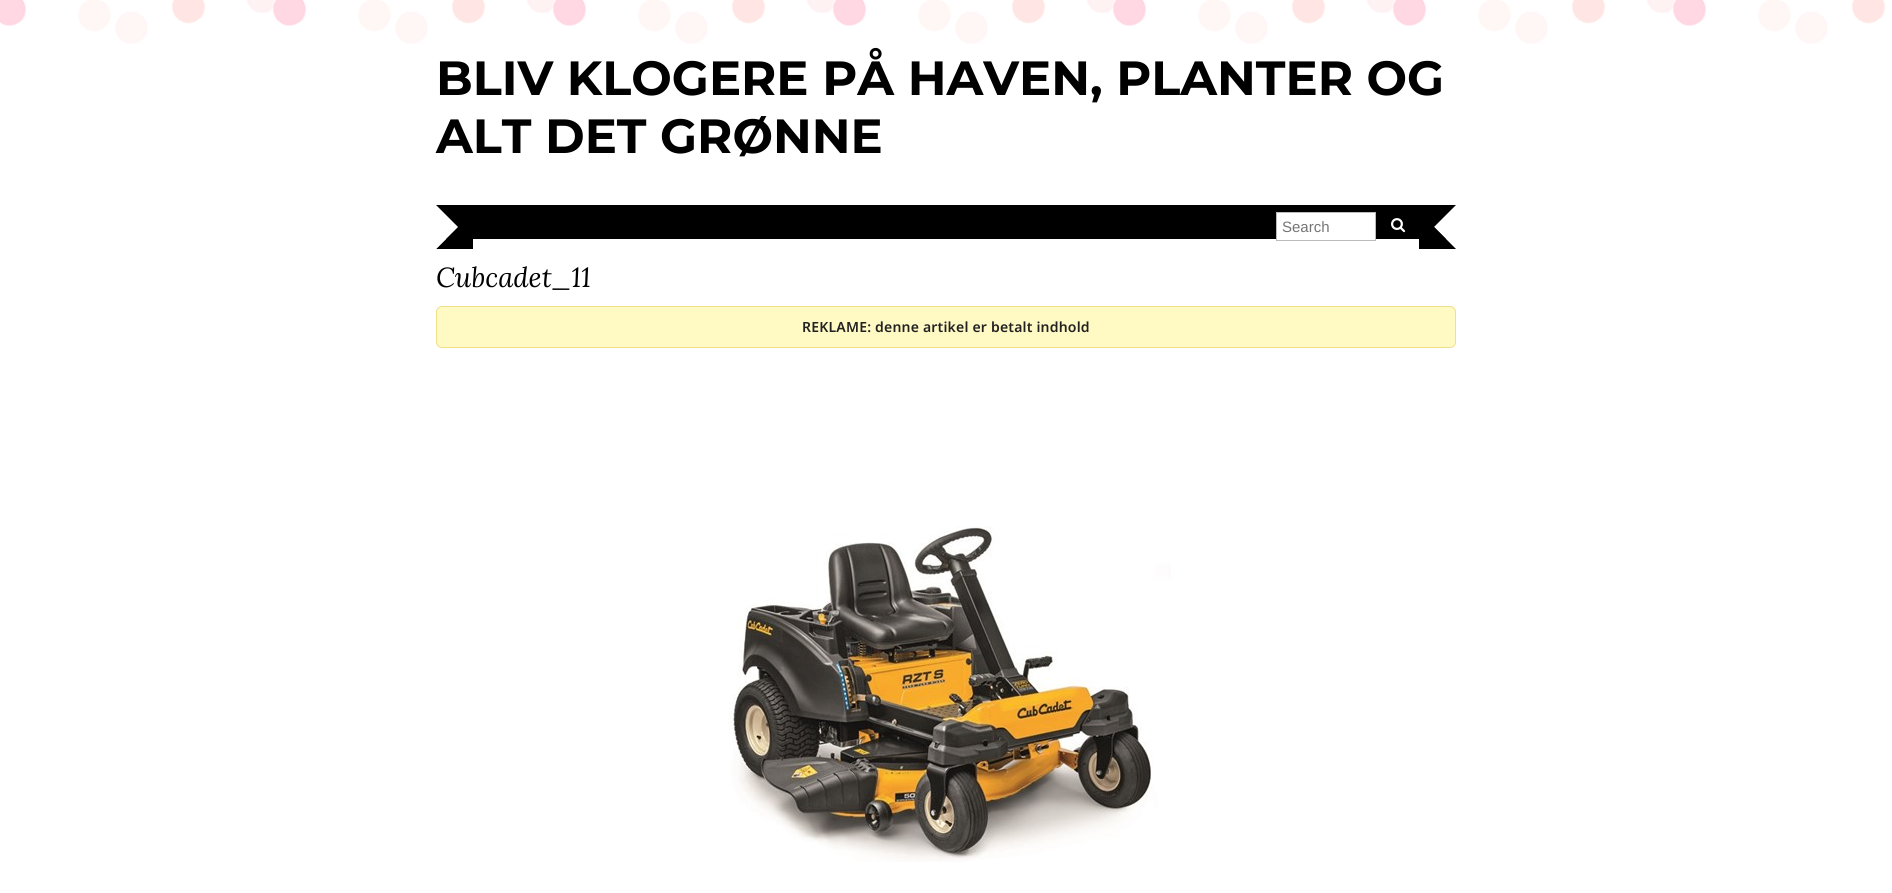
import math
import cairo

surface = cairo.ImageSurface(cairo.FORMAT_RGB24, 1892, 893)
c = cairo.Context(surface)
options = cairo.FontOptions()
options.set_hint_metrics(cairo.HINT_METRICS_OFF)
options.set_hint_style(cairo.HINT_STYLE_NONE)
c.set_font_options(options)
c.set_miter_limit(4)
def C(code):
 c.set_source_rgb(*(v / 255 for v in bytes.fromhex(code[-6:])))
def F(family, size, italic, bold):
 c.select_font_face(family, cairo.FONT_SLANT_ITALIC if italic else cairo.FONT_SLANT_NORMAL, cairo.FONT_WEIGHT_BOLD if bold else cairo.FONT_WEIGHT_NORMAL)
 c.set_font_size(size)
def T(x, y, s):
 c.move_to(x, y)
 c.show_text(s)
def L(x, y, s, letter, word):
 c.move_to(x, y)
 for ch in s:
  c.show_text(ch)
  c.rel_move_to(letter + word * (ch == ' '), 0)
def R(x, y, w, h):
 c.rectangle(x, y, w, h)
 c.fill()
def Q(x, y, w, h, r):
 c.new_sub_path()
 for i, (u, v) in enumerate([(x + w - r, y + h - r), (x + r, y + h - r), (x + r, y + r), (x + w - r, y + r)]):
  c.arc(u, v, r, i * math.pi / 2, (i + 1) * math.pi / 2)
 c.close_path()
def I(path, x, y, w, h):
 c.save()
 c.set_source_surface(cairo.ImageSurface.create_from_png(path), x, y)
 c.rectangle(x, y, w, h)
 c.fill()
 c.restore()
C('ffffff')
c.paint()
I('1.png',0,0,1885,44)
F('Montserrat',48,0,1)
C('000000')
T(436,95,'BLIV KLOGERE PÅ HAVEN, PLANTER OG')
T(436,153,'ALT DET GRØNNE')
R(436,205,1020,34)
R(458,239,15,10)
c.new_path()
c.move_to(473,249)
c.line_to(436,249)
c.line_to(458,227)
c.close_path()
c.fill()
C('ffffff')
c.new_path()
c.move_to(436,249)
c.line_to(436,205)
c.line_to(458,227)
c.close_path()
c.fill()
R(1277,213,98,26)
c.rectangle(1276.5,212.5,99,28)
C('bbbbbb')
c.set_line_width(1)
c.stroke()
F('Liberation Sans',15,0,0)
C('757575')
T(1282,232,'Search')
I('2.png',1391,218,15,15)
C('ffffff')
c.new_path()
c.move_to(1456,205)
c.line_to(1456,249)
c.line_to(1434,227)
c.close_path()
c.fill()
C('000000')
c.new_path()
c.move_to(1456,249)
c.line_to(1419,249)
c.line_to(1434,227)
c.close_path()
c.fill()
R(1419,239,7,10)
F('Lora',27.5,1,0)
T(436,287,'Cubcadet_11')
C('fff9c4')
Q(436.5,306.5,1019,41,5.5)
c.fill_preserve()
C('f0e08a')
c.stroke()
F('Noto Sans SemiBold',14,0,0)
C('222222')
L(802,332,'REKLAME: denne artikel er betalt indhold',.2,0)
I('3.png',729,526,442,336)
surface.write_to_png('o.png')
